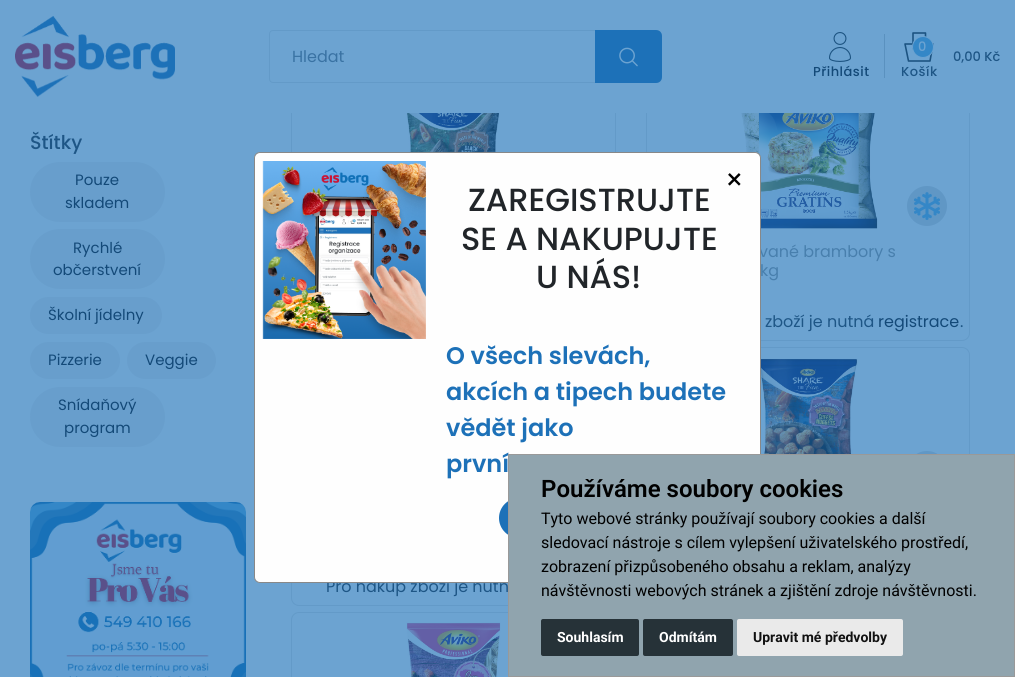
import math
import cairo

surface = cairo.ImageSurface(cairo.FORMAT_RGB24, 1015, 677)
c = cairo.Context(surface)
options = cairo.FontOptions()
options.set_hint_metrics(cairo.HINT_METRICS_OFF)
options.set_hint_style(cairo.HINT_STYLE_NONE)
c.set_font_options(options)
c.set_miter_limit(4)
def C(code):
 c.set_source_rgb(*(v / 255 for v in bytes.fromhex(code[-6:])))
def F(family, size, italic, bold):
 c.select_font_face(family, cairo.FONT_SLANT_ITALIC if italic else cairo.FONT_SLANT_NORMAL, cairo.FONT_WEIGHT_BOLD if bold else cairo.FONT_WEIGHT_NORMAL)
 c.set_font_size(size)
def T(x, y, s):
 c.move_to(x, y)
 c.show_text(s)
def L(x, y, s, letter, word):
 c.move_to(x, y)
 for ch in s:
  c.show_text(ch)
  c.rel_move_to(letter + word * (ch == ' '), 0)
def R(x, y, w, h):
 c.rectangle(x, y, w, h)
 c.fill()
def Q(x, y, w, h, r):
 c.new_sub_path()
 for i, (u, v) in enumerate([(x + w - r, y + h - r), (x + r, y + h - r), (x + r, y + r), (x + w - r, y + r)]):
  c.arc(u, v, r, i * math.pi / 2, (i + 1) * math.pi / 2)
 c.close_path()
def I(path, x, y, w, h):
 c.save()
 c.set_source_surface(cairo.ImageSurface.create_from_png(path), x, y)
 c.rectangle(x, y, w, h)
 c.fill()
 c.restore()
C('6ca3d1')
c.paint()
c.rectangle(291.5,82.5,324,258)
C('639ac8')
c.set_line_width(1)
c.stroke()
Q(646.5,82.5,323,258,7.5)
c.stroke()
C('6ca3d1')
R(291,82,679,31)
I('1.png',15,16,160,81)
c.new_path()
c.move_to(273,30.5)
c.line_to(279.5,30.5)
c.line_to(279.5,82.5)
c.line_to(273,82.5)
c.curve_to(271,82.5,269.5,81,269.5,79)
c.line_to(269.5,34)
c.curve_to(269.5,32,271,30.5,273,30.5)
c.close_path()
C('639ac8')
c.stroke()
C('6ca3d1')
R(279,31,1,51)
C('639ac8')
R(279,30,317,1)
R(279,82,317,1)
F('Poppins',16,0,0)
C('3972a3')
T(292,62,'Hledat')
C('1d71b8')
c.new_path()
c.move_to(595,30)
c.line_to(656,30)
c.curve_to(659.5,30,662,32.5,662,36)
c.line_to(662,77)
c.curve_to(662,80.5,659.5,83,656,83)
c.line_to(595,83)
c.close_path()
c.fill()
I('2.png',619,47,19,20)
I('3.png',829,32,22,30)
F('Poppins Medium',13,0,0)
C('134978')
L(813,76,'Přihlásit',.5,0)
C('5a91bf')
R(884,34,1,44)
c.new_path()
c.move_to(905,44)
c.line_to(933,44)
c.line_to(930,61)
c.line_to(908.5,61)
c.close_path()
c.move_to(913,48.5)
c.line_to(913,33)
c.line_to(925.5,33)
c.line_to(925.5,48.5)
C('1c5381')
c.set_line_width(1.6)
c.set_line_cap(cairo.LINE_CAP_ROUND)
c.set_line_join(cairo.LINE_JOIN_ROUND)
c.stroke()
C('3487c7')
c.arc(923,47,10.5,0,2 * math.pi)
c.fill_preserve()
C('6ca3d1')
c.set_line_width(1)
c.set_line_cap(cairo.LINE_CAP_BUTT)
c.set_line_join(cairo.LINE_JOIN_MITER)
c.stroke()
L(918,51,'0',.5,0)
C('1e5686')
L(901,76,'Košík',.5,0)
T(953,61,'0,00 Kč')
F('Poppins Medium',19,0,0)
T(30,149,'Štítky')
C('689ecc')
Q(30,162,135,60,30)
c.fill()
F('Poppins',15,0,0)
C('134978')
T(75,185,'Pouze')
T(65,208,'skladem')
C('689ecc')
Q(30,229,135,60,30)
c.fill()
C('134978')
T(73,253,'Rychlé')
T(53,275,'občerstvení')
C('689ecc')
Q(30,297,132,37,18.5)
c.fill()
C('134978')
T(48,320,'Školní jídelny')
C('689ecc')
Q(30,342,90,37,18.5)
c.fill()
C('134978')
T(48,365,'Pizzerie')
C('689ecc')
Q(127,342,89,37,18.5)
c.fill()
C('134978')
T(145,365,'Veggie')
C('689ecc')
Q(30,387,135,60,30)
c.fill()
C('134978')
T(58,410,'Snídaňový')
T(64,433,'program')
I('4.png',30,502,216,175)
I('5.png',403,113,100,39)
I('6.png',741,113,137,116)
C('6097c5')
c.arc(927,206,20,0,2 * math.pi)
c.fill()
I('7.png',914,192,26,28)
F('Poppins',16,0,0)
C('487fad')
T(759,257,'vané brambory s')
T(760,276,'kg')
C('1e5686')
T(765,327,'zboží je nutná')
C('134978')
T(878,327,'registrace')
C('1e5686')
T(960,327,'.')
Q(291.5,347.5,324,258,7.5)
C('639ac8')
c.stroke()
C('1e5686')
T(326,592,'Pro nákup zboží je nutn')
Q(646.5,347.5,323,258,7.5)
C('639ac8')
c.stroke()
I('8.png',761,359,97,95)
C('6097c5')
c.arc(927,471,20,0,2 * math.pi)
c.fill()
Q(291.5,612.5,324,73,7.5)
C('639ac8')
c.stroke()
I('9.png',406,622,95,55)
C('fefefe')
Q(254.5,152.5,506,430,5.5)
c.fill_preserve()
C('888888')
c.stroke()
I('10.png',262,161,164,178)
F('Poppins',29,0,0)
C('000000')
T(725,190,'×')
F('Poppins Medium',32,0,0)
C('212529')
T(468,211,'ZAREGISTRUJTE')
T(461,250,'SE A NAKUPUJTE')
T(536,288,'U NÁS!')
F('Poppins SemiBold',24,0,0)
C('1d71b8')
T(446,364,'O všech slevách,')
T(446,400,'akcích a tipech budete')
T(446,436,'vědět jako')
T(446,472,'první')
Q(499,498,180,40,20)
c.fill()
C('90a4ae')
c.rectangle(508.5,454.5,506,222)
c.fill_preserve()
C('999999')
c.stroke()
F('Roboto SemiBold',24,0,0)
C('000000')
T(541,497,'Používáme soubory cookies')
F('Roboto',16,0,0)
T(541,524,'Tyto webové stránky používají soubory cookies a další')
T(541,548,'sledovací nástroje s cílem vylepšení uživatelského prostředí,')
T(541,572,'zobrazení přizpůsobeného obsahu a reklam, analýzy')
T(541,596,'návštěvnosti webových stránek a zjištění zdroje návštěvnosti.')
C('263238')
Q(541,619,98,37,2)
c.fill()
F('Roboto',14,0,1)
C('ffffff')
T(557,642,'Souhlasím')
C('263238')
Q(643,619,90,37,2)
c.fill()
C('ffffff')
T(659,642,'Odmítám')
C('eaeaea')
Q(737,619,166,37,2)
c.fill()
C('111111')
T(753,642,'Upravit mé předvolby')
surface.write_to_png('o.png')
